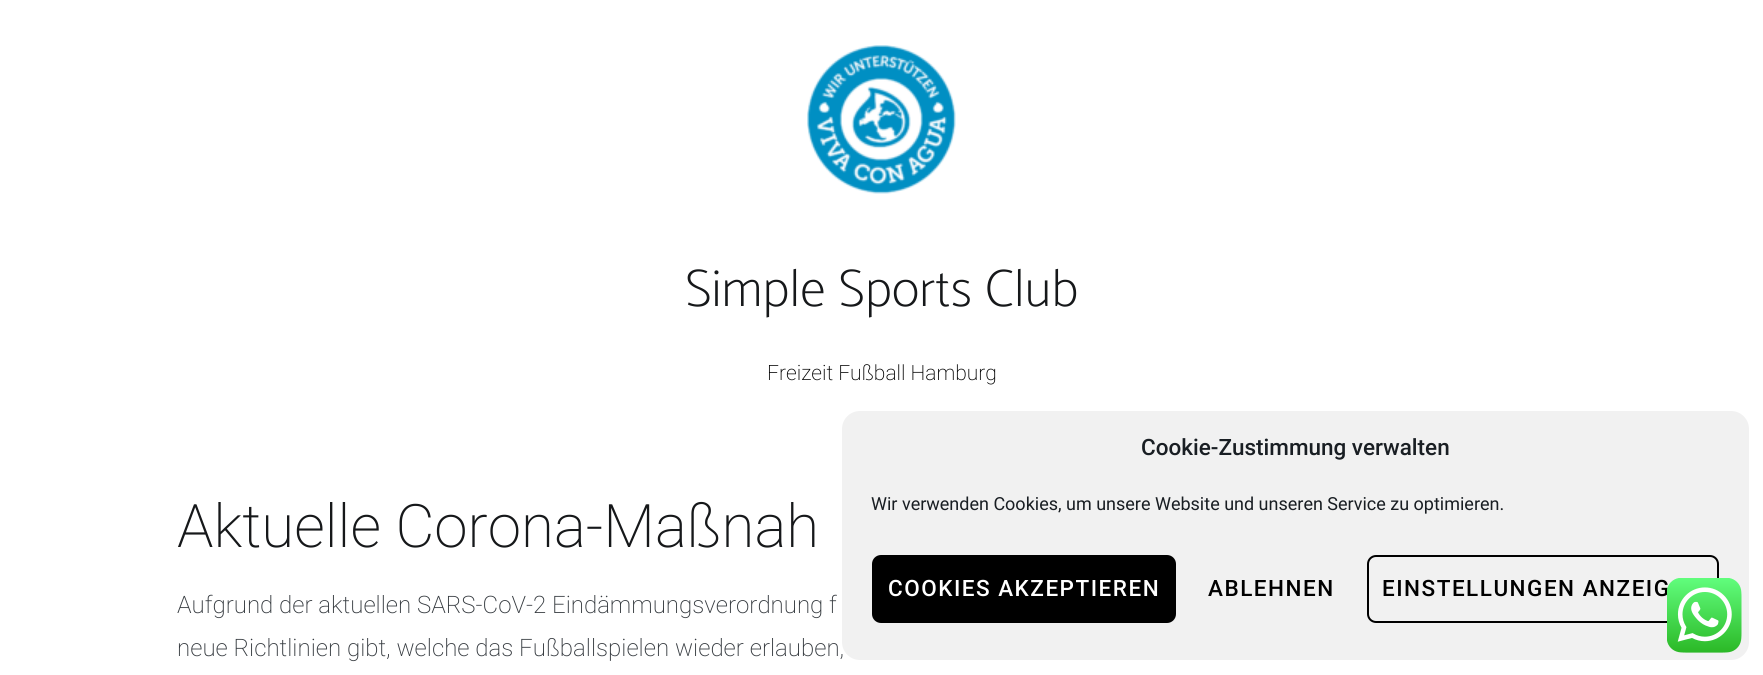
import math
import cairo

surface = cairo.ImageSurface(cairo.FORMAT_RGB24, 1763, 675)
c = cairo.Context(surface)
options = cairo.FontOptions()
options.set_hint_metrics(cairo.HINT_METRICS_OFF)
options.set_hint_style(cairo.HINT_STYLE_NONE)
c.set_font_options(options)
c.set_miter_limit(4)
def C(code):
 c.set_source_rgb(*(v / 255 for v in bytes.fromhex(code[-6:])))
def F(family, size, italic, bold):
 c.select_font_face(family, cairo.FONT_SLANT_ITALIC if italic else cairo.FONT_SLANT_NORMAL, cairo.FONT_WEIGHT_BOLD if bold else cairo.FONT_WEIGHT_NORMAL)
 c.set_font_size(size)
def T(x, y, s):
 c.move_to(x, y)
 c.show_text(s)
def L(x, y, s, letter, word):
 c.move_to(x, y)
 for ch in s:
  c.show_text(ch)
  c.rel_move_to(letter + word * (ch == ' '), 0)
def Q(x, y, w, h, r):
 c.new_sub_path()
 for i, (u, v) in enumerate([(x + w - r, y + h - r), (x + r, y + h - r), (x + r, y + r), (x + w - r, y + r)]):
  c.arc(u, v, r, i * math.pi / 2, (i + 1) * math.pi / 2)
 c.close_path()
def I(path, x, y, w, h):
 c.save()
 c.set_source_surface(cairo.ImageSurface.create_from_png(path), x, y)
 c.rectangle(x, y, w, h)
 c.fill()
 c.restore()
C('ffffff')
c.paint()
I('1.png',807,45,149,149)
F('Catamaran Thin',52.75,0,0)
C('16181a')
T(685,306,'Simple Sports Club')
F('Roboto ExtraLight',21,0,0)
C('000000')
T(767,380,'Freizeit Fußball Hamburg')
F('Roboto ExtraLight',60,0,0)
C('16181a')
T(177,547,'Aktuelle Corona-Maßnah')
F('Roboto ExtraLight',24,0,0)
C('363b40')
T(177,613,'Aufgrund der aktuellen SARS-CoV-2 Eindämmungsverordnung f')
T(177,656,'neue Richtlinien gibt, welche das Fußballspielen wieder erlauben,')
C('f1f1f1')
Q(842,411,907,249,18)
c.fill()
F('Roboto Medium',22.5,0,0)
C('191e23')
T(1141,455,'Cookie-Zustimmung verwalten')
F('Roboto',18,0,0)
T(871,510,'Wir verwenden Cookies, um unsere Website und unseren Service zu optimieren.')
C('000000')
Q(873,556,302,66,8)
c.fill_preserve()
c.stroke()
F('Roboto Medium',22.5,0,0)
C('ffffff')
L(888,596,'COOKIES AKZEPTIEREN',1.5,0)
C('000000')
L(1208,596,'ABLEHNEN',1.5,0)
Q(1368,556,350,66,8)
c.stroke()
L(1382,596,'EINSTELLUNGEN ANZEIG',1.5,0)
I('2.png',1667,578,75,75)
surface.write_to_png('o.png')
